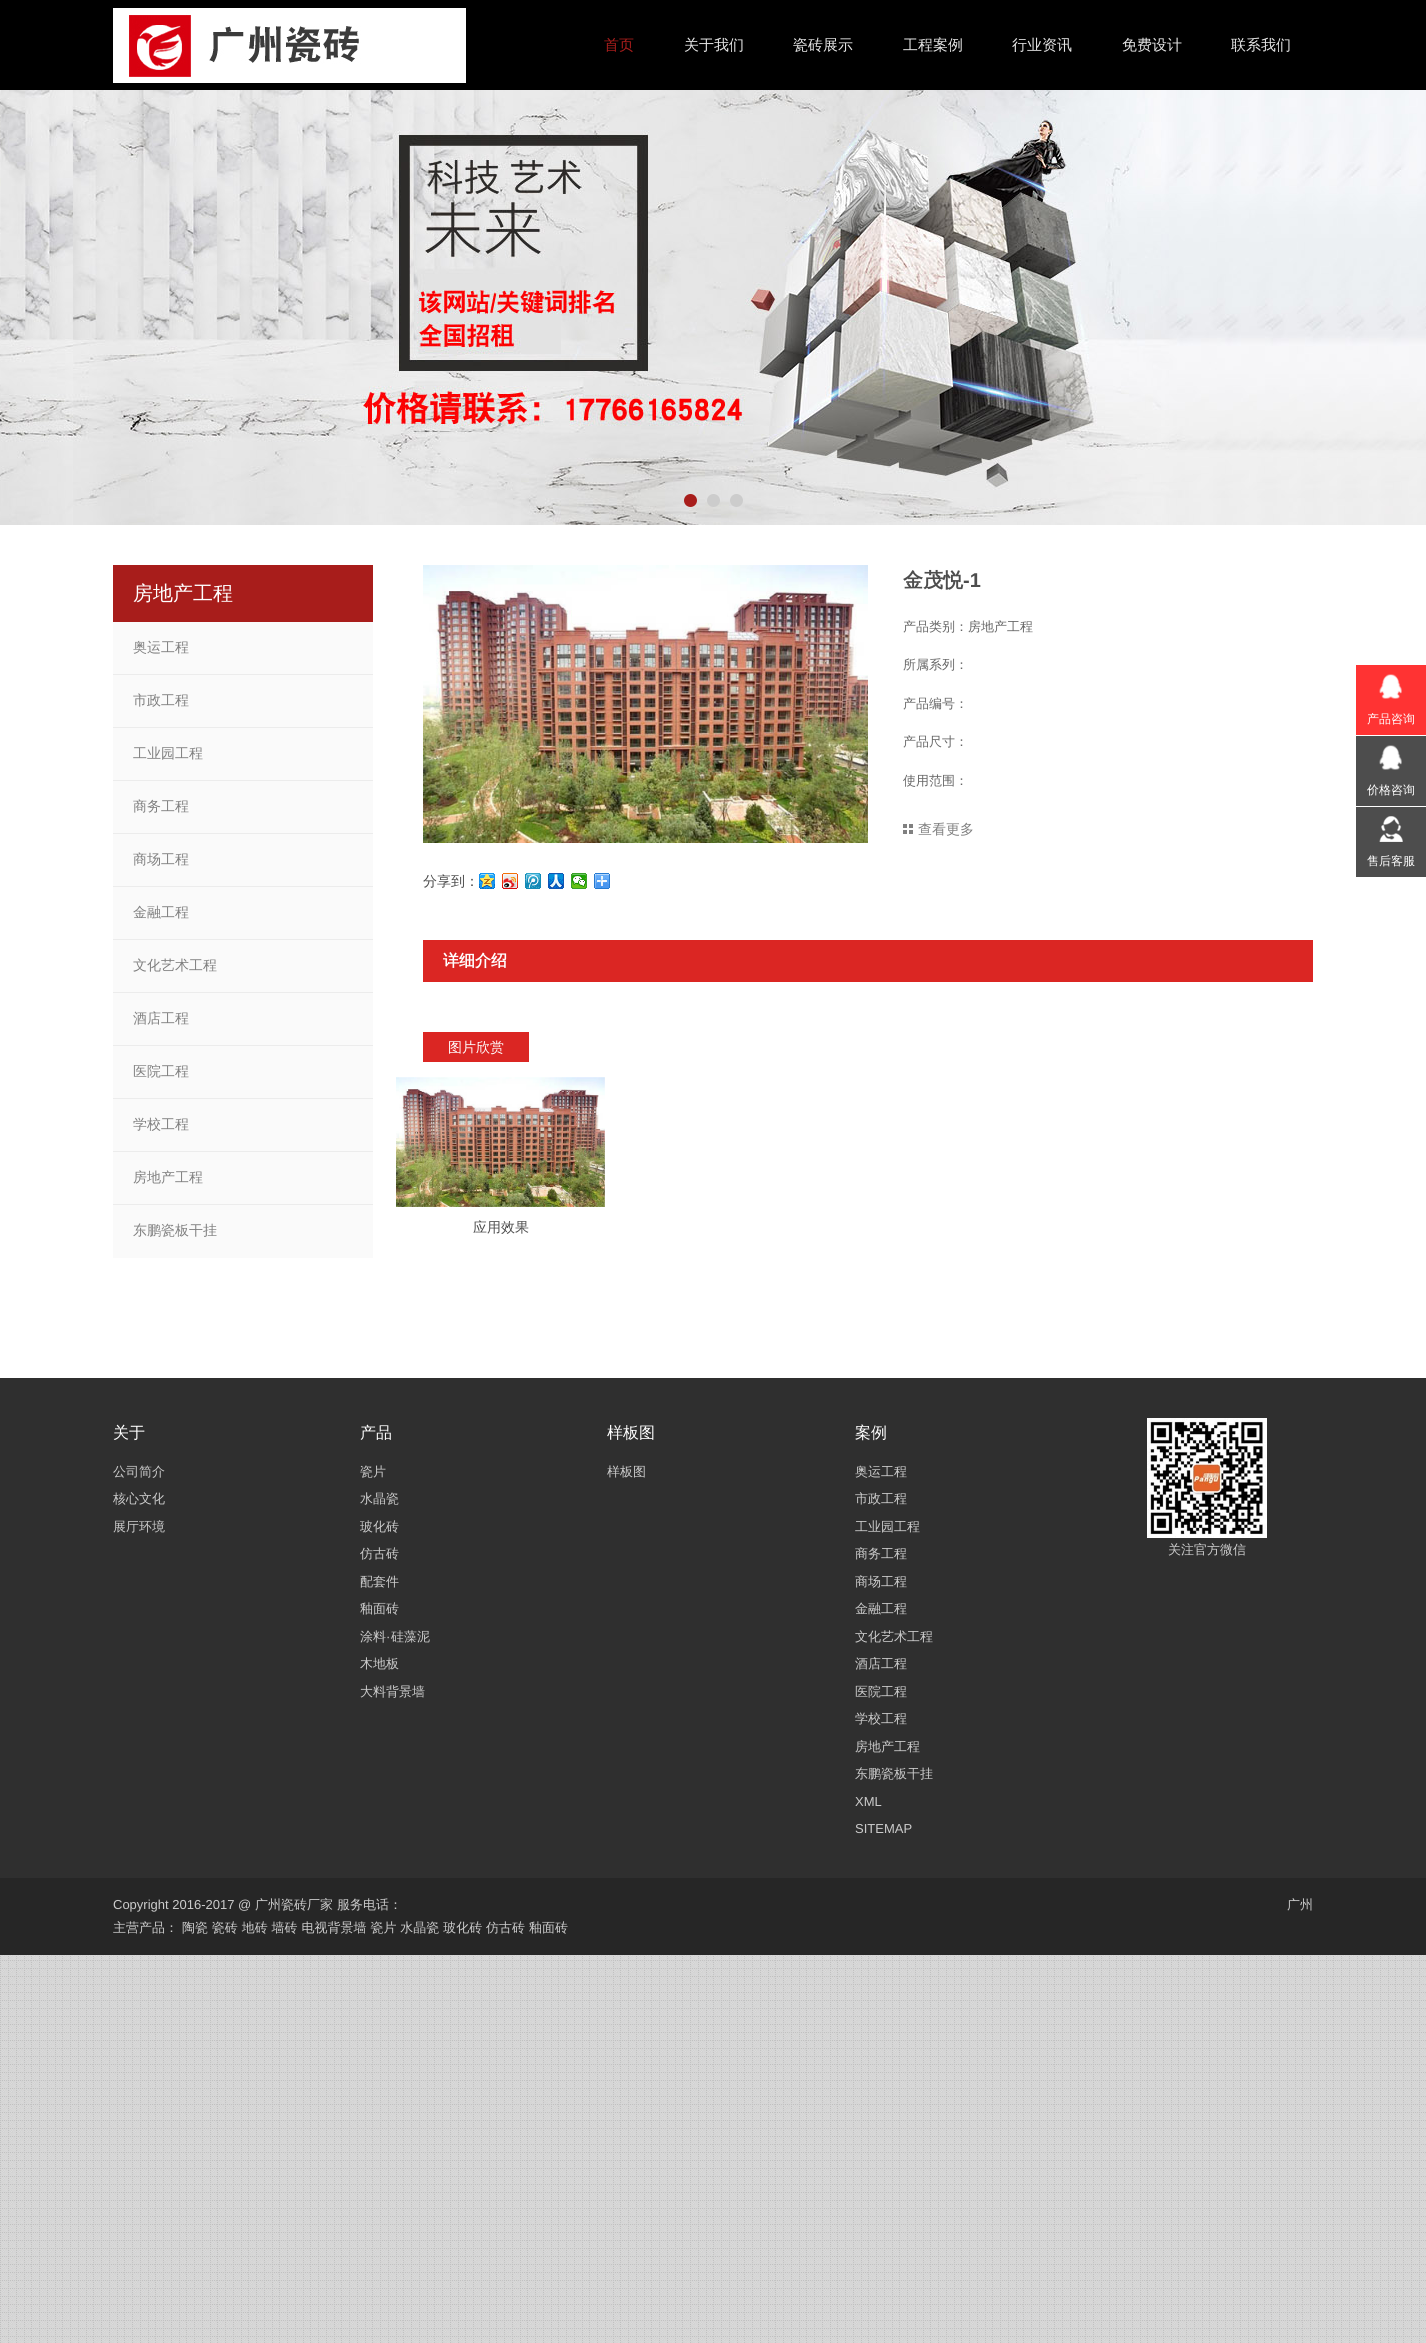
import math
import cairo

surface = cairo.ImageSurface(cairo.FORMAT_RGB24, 1426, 2343)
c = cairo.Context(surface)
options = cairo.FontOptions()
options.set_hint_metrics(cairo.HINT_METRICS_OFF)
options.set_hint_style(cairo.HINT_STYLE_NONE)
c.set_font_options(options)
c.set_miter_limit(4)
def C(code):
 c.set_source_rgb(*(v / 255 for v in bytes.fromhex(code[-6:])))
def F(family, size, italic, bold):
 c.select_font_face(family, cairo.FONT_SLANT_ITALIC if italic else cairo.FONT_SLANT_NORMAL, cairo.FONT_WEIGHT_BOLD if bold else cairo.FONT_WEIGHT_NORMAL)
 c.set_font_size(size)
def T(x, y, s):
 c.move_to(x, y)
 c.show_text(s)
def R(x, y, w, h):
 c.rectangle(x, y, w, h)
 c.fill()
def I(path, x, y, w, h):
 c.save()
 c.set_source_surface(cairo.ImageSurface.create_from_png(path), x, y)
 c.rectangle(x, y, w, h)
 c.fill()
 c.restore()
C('ffffff')
c.paint()
I('1.png',0,1955,1426,388)
C('000000')
R(0,0,1426,90)
I('2.png',113,8,353,75)
F('WenQuanYi Zen Hei Medium',15,0,0)
C('a81d1b')
T(604,50,'首页')
C('e5e5e5')
T(684,50,'关于我们')
T(793,50,'瓷砖展示')
T(903,50,'工程案例')
T(1012,50,'行业资讯')
T(1122,50,'免费设计')
T(1231,50,'联系我们')
I('3.png',0,90,1426,435)
C('a81d1b')
c.arc(690.5,500.5,6.5,0,2 * math.pi)
c.fill()
C('cccccc')
c.arc(713.5,500.5,6.5,0,2 * math.pi)
c.fill()
c.arc(736.5,500.5,6.5,0,2 * math.pi)
c.fill()
C('fafafa')
R(113,622,260,636)
C('a81d1b')
R(113,565,260,57)
F('WenQuanYi Zen Hei Medium',20,0,0)
C('ffffff')
T(133,600,'房地产工程')
C('ececec')
R(113,674,260,1)
F('WenQuanYi Zen Hei Medium',14,0,0)
C('808080')
T(133,652,'奥运工程')
C('ececec')
R(113,727,260,1)
C('808080')
T(133,705,'市政工程')
C('ececec')
R(113,780,260,1)
C('808080')
T(133,758,'工业园工程')
C('ececec')
R(113,833,260,1)
C('808080')
T(133,811,'商务工程')
C('ececec')
R(113,886,260,1)
C('808080')
T(133,864,'商场工程')
C('ececec')
R(113,939,260,1)
C('808080')
T(133,917,'金融工程')
C('ececec')
R(113,992,260,1)
C('808080')
T(133,970,'文化艺术工程')
C('ececec')
R(113,1045,260,1)
C('808080')
T(133,1023,'酒店工程')
C('ececec')
R(113,1098,260,1)
C('808080')
T(133,1076,'医院工程')
C('ececec')
R(113,1151,260,1)
C('808080')
T(133,1129,'学校工程')
C('ececec')
R(113,1204,260,1)
C('808080')
T(133,1182,'房地产工程')
T(133,1235,'东鹏瓷板干挂')
F('WenQuanYi Zen Hei',20,0,1)
C('4d4d4d')
T(903,587,'金茂悦')
F('Liberation Sans',20,0,1)
T(963,587,'-1')
F('WenQuanYi Zen Hei Medium',13,0,0)
C('666666')
T(903,631,'产品类别：房地产工程')
T(903,669,'所属系列：')
T(903,708,'产品编号：')
T(903,746,'产品尺寸：')
T(903,785,'使用范围：')
I('4.png',903,824,10,10)
F('WenQuanYi Zen Hei Medium',14,0,0)
C('808080')
T(918,834,'查看更多')
I('5.png',423,565,445,278)
C('4d4d4d')
T(423,886,'分享到：')
I('6.png',479,873,16,16)
I('7.png',502,873,16,16)
I('8.png',525,873,16,16)
I('9.png',548,873,16,16)
I('10.png',571,873,16,16)
I('11.png',594,873,16,16)
C('db2623')
R(423,940,890,42)
F('WenQuanYi Zen Hei',16,0,1)
C('ffffff')
T(443,966,'详细介绍')
C('db2623')
R(423,1032,106,30)
F('WenQuanYi Zen Hei Medium',14,0,0)
C('ffffff')
T(448,1052,'图片欣赏')
I('12.png',396,1077,209,130)
C('4d4d4d')
T(473,1232,'应用效果')
C('2f2f2f')
R(0,1378,1426,500)
F('WenQuanYi Zen Hei Medium',16,0,0)
C('ffffff')
T(113,1438,'关于')
F('WenQuanYi Zen Hei Medium',13,0,0)
C('cccccc')
T(113,1476,'公司简介')
T(113,1503,'核心文化')
T(113,1531,'展厅环境')
F('WenQuanYi Zen Hei Medium',16,0,0)
C('ffffff')
T(360,1438,'产品')
F('WenQuanYi Zen Hei Medium',13,0,0)
C('cccccc')
T(360,1476,'瓷片')
T(360,1503,'水晶瓷')
T(360,1531,'玻化砖')
T(360,1558,'仿古砖')
T(360,1586,'配套件')
T(360,1613,'釉面砖')
T(360,1641,'涂料')
F('Liberation Sans',13,0,0)
T(386,1641,'·')
F('WenQuanYi Zen Hei Medium',13,0,0)
T(391,1641,'硅藻泥')
T(360,1668,'木地板')
T(360,1696,'大料背景墙')
F('WenQuanYi Zen Hei Medium',16,0,0)
C('ffffff')
T(607,1438,'样板图')
F('WenQuanYi Zen Hei Medium',13,0,0)
C('cccccc')
T(607,1476,'样板图')
F('WenQuanYi Zen Hei Medium',16,0,0)
C('ffffff')
T(855,1438,'案例')
F('WenQuanYi Zen Hei Medium',13,0,0)
C('cccccc')
T(855,1476,'奥运工程')
T(855,1503,'市政工程')
T(855,1531,'工业园工程')
T(855,1558,'商务工程')
T(855,1586,'商场工程')
T(855,1613,'金融工程')
T(855,1641,'文化艺术工程')
T(855,1668,'酒店工程')
T(855,1696,'医院工程')
T(855,1723,'学校工程')
T(855,1751,'房地产工程')
T(855,1778,'东鹏瓷板干挂')
F('Liberation Sans',13,0,0)
T(855,1806,'XML')
T(855,1833,'SITEMAP')
I('13.png',1147,1418,120,120)
F('WenQuanYi Zen Hei Medium',13,0,0)
T(1168,1554,'关注官方微信')
C('262626')
R(0,1878,1426,77)
F('Liberation Sans',13,0,0)
C('cccccc')
T(113,1909,'Copyright 2016-2017 @')
F('WenQuanYi Zen Hei Medium',13,0,0)
T(255,1909,'广州瓷砖厂家 服务电话：')
T(113,1932,'主营产品： 陶瓷 瓷砖 地砖 墙砖 电视背景墙 瓷片 水晶瓷 玻化砖 仿古砖 釉面砖')
T(1287,1909,'广州')
C('ff3333')
R(1356,665,70,70)
I('14.png',1379,674,23,25)
F('WenQuanYi Zen Hei Medium',12,0,0)
C('ffffff')
T(1367,723,'产品咨询')
C('4d4d4d')
R(1356,736,70,70)
I('15.png',1379,745,23,25)
C('ffffff')
T(1367,794,'价格咨询')
C('4d4d4d')
R(1356,807,70,70)
I('16.png',1379,816,24,26)
C('ffffff')
T(1367,865,'售后客服')
surface.write_to_png('o.png')
